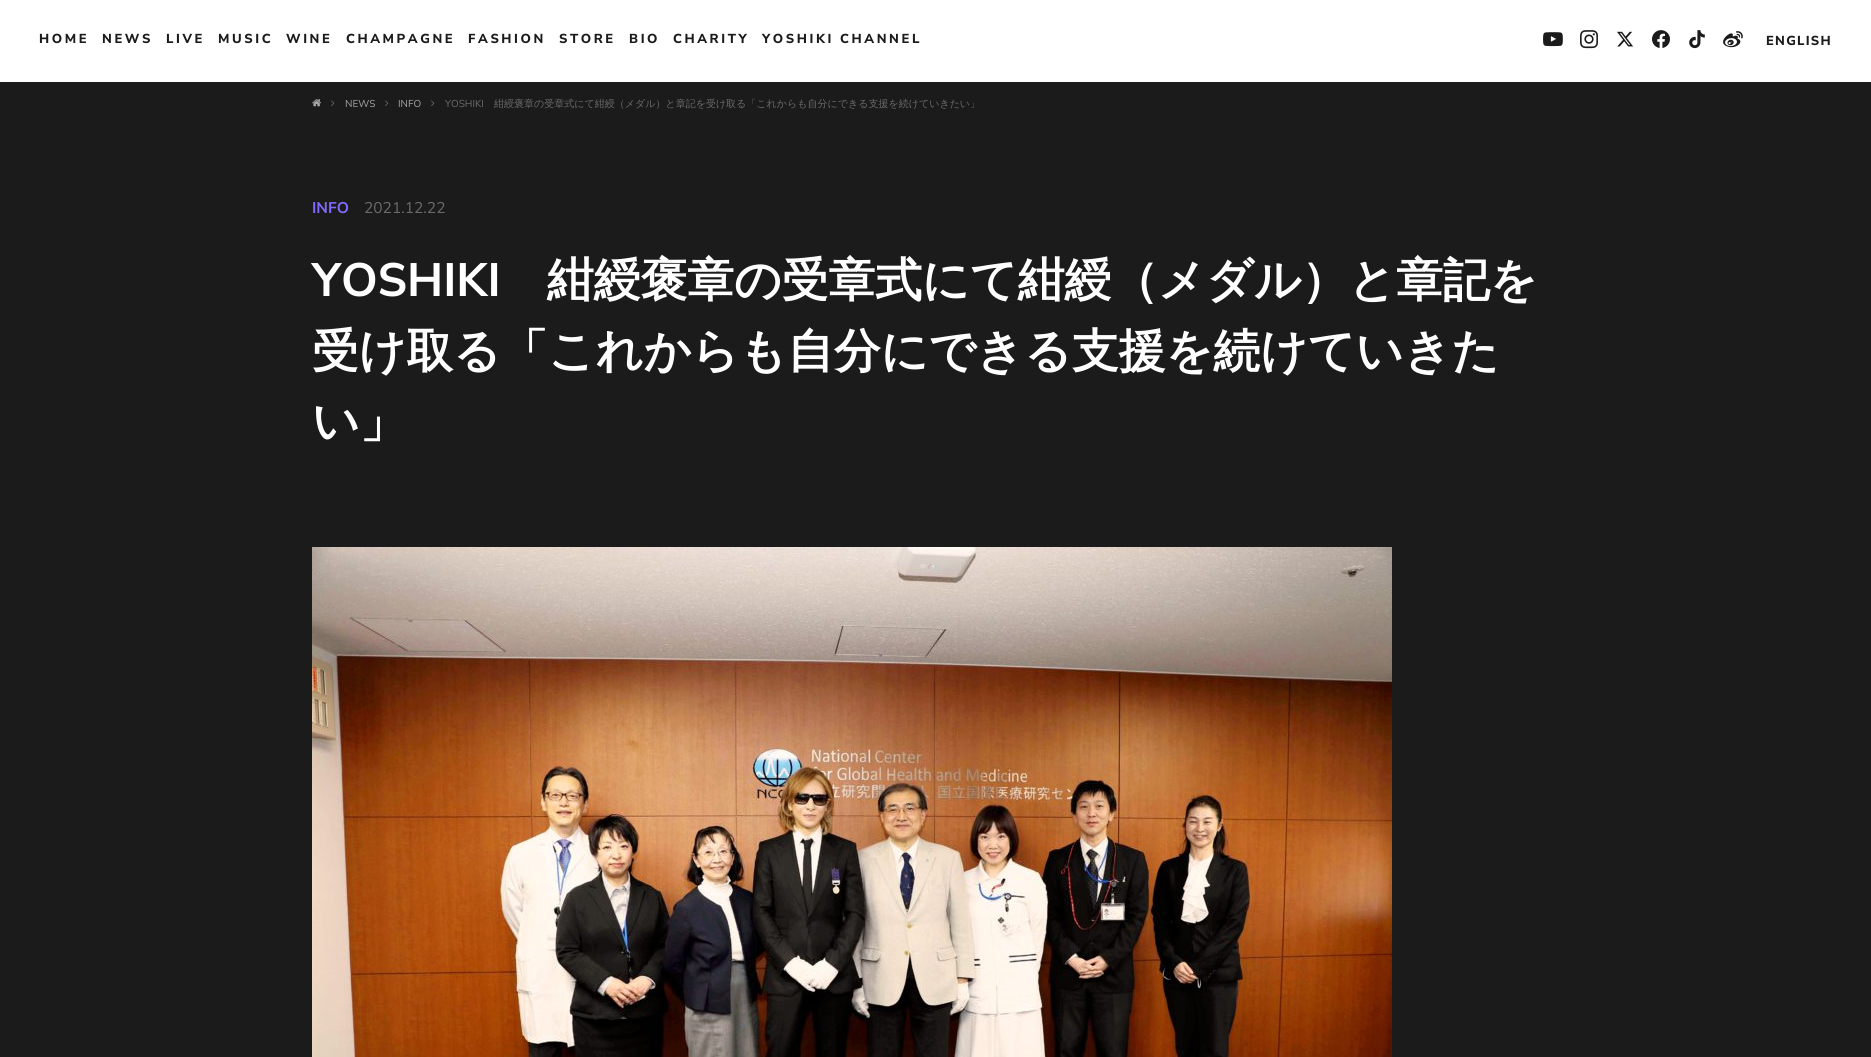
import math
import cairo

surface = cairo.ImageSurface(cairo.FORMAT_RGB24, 1871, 1057)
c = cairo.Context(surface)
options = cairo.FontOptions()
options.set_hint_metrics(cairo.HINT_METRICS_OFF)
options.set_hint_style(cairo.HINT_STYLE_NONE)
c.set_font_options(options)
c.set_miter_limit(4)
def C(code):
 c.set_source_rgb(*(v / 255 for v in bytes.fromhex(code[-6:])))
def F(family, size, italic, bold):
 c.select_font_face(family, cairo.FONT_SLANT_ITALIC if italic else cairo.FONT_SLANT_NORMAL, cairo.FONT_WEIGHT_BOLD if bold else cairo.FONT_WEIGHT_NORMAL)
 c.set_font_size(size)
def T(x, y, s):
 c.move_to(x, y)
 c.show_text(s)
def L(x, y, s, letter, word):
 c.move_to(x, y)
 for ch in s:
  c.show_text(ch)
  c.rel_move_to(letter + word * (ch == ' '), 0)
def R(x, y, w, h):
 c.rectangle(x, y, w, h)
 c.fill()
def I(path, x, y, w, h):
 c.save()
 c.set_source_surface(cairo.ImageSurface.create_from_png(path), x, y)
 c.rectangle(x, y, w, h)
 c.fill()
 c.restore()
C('1b1b1b')
c.paint()
C('ffffff')
R(0,0,1871,82)
F('Nunito Sans ExtraBold',13,0,0)
C('1b1b1b')
L(39,43,'HOME',2.6,0)
L(102,43,'NEWS',2.6,0)
L(166,43,'LIVE',2.6,0)
L(218,43,'MUSIC',2.6,0)
L(286,43,'WINE',2.6,0)
L(346,43,'CHAMPAGNE',2.6,0)
L(468,43,'FASHION',2.6,0)
L(559,43,'STORE',2.6,0)
L(629,43,'BIO',2.6,0)
L(673,43,'CHARITY',2.6,0)
L(762,43,'YOSHIKI CHANNEL',2.6,0)
I('1.png',1543,32,20,15)
I('2.png',1580,30,18,19)
I('3.png',1617,31,16,16)
I('4.png',1652,30,18,18)
I('5.png',1689,30,16,19)
I('6.png',1723,31,20,17)
L(1766,45,'ENGLISH',1.25,0)
I('7.png',312,99,10,8)
I('8.png',331,100,4,6)
F('Nunito Sans',10,0,0)
C('a6a6a6')
T(345,107,'NEWS')
I('8.png',385,100,4,6)
T(398,107,'INFO')
I('8.png',431,100,4,6)
C('6b6b6b')
T(445,107,'YOSHIKI')
F('WenQuanYi Zen Hei Medium',10,0,0)
T(494,107,'紺綬褒章の受章式にて紺綬（メダル）と章記を受け取る「これからも自分にできる支援を続けていきたい」')
F('Nunito Sans',15.5,0,1)
C('816aff')
T(312,213,'INFO')
F('Nunito Sans',15.5,0,0)
C('6b6b6b')
T(364,213,'2021.12.22')
F('Nunito Sans',46.75,0,1)
C('ffffff')
T(312,296,'YOSHIKI')
F('WenQuanYi Zen Hei',46.75,0,1)
T(547,296,'紺綬褒章の受章式にて紺綬（メダル）と章記を')
T(312,367,'受け取る「これからも自分にできる支援を続けていきた')
T(312,437,'い」')
I('9.png',312,547,1080,510)
surface.write_to_png('o.png')
